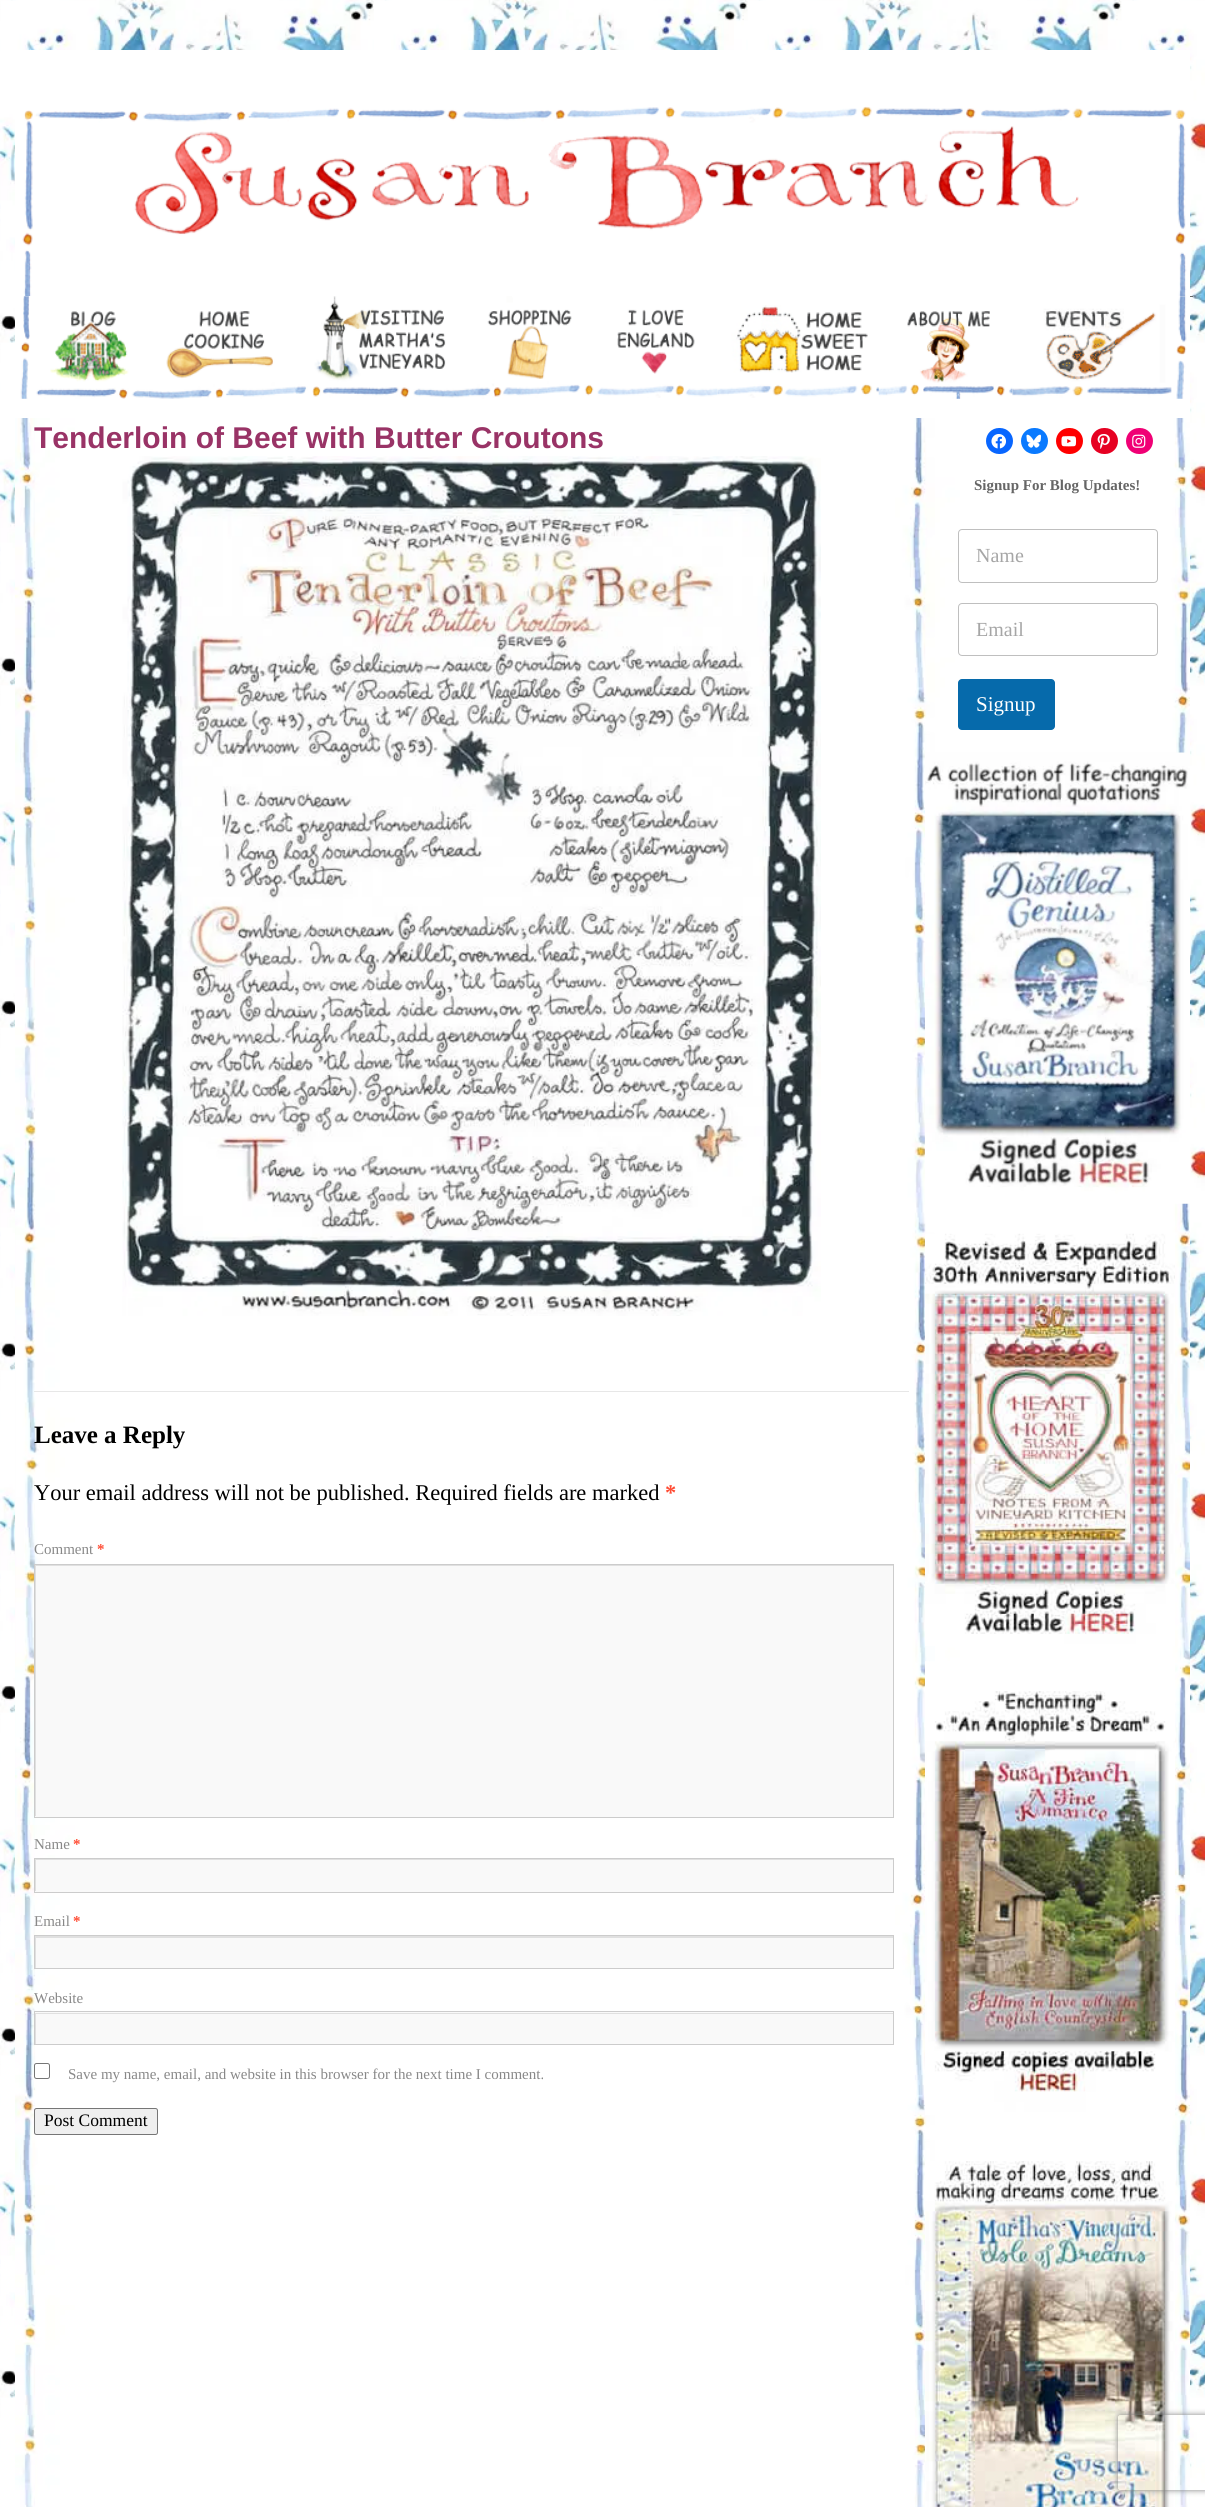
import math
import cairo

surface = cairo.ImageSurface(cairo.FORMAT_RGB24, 1205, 2507)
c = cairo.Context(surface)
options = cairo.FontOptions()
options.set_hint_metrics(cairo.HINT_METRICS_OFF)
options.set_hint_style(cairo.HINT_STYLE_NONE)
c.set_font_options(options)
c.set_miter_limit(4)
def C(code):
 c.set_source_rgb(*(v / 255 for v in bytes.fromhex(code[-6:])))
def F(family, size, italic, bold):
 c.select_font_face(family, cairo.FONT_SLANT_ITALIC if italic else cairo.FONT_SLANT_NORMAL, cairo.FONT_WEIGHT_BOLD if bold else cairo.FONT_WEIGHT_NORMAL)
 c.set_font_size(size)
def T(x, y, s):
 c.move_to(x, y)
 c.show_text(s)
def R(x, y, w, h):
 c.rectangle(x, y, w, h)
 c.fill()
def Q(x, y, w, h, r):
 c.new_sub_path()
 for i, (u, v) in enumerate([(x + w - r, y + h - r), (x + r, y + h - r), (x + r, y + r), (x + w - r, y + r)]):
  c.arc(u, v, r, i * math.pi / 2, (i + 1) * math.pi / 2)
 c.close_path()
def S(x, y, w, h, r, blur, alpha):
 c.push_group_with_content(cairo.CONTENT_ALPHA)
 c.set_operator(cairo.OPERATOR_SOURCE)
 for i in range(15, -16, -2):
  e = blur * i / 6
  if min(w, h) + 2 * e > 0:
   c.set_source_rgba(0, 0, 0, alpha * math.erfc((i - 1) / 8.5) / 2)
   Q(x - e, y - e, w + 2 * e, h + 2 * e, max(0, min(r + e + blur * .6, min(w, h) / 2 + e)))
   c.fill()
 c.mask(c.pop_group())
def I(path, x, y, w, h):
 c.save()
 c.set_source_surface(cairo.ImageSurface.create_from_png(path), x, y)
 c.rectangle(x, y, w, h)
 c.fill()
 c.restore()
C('ffffff')
c.paint()
I('1.png',0,0,1205,2507)
C('ffffff')
R(15,50,1175,246)
I('2.png',22,106,1165,190)
C('666666')
R(1190,296,3,1)
C('ffffff')
R(15,296,1175,122)
I('3.png',20,296,129,103)
I('4.png',148,311,147,88)
I('5.png',295,296,175,102)
I('6.png',470,296,126,103)
I('7.png',597,309,121,89)
I('8.png',717,305,162,93)
I('9.png',878,311,135,88)
I('10.png',1012,296,175,103)
I('11.png',15,418,1175,2089)
F('Liberation Sans',30,0,1)
C('993366')
T(34,448,'Tenderloin of Beef with Butter Croutons')
I('12.png',122,456,699,860)
C('e7e7e7')
R(34,1391,875,1)
F('Liberation Serif',25,0,1)
C('000000')
T(34,1443,'Leave a Reply')
F('Liberation Serif',22.5,0,0)
T(34,1500,'Your email address will not be published. Required fields are marked')
F('Liberation Serif',22.5,0,1)
C('ff4b33')
T(665,1500,'*')
F('Liberation Serif',15,0,0)
C('888888')
T(34,1554,'Comment')
F('Liberation Serif',15,0,1)
C('ff4b33')
T(97,1554,'*')
C('f9f9f9')
R(35,1566,858,251)
c.save()
c.rectangle(35,1565,858,251)
c.clip()
C('e0e0e0')
c.set_fill_rule(cairo.FILL_RULE_EVEN_ODD)
c.new_path()
c.move_to(-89,1441)
c.line_to(1016,1441)
c.line_to(1016,1940)
c.line_to(-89,1940)
c.close_path()
c.move_to(36,1566)
c.line_to(894,1566)
c.line_to(894,1818)
c.line_to(36,1818)
c.close_path()
c.fill()
c.restore()
c.rectangle(34.5,1564.5,859,253)
C('cccccc')
c.set_line_width(1)
c.stroke()
F('Liberation Serif',15,0,0)
C('888888')
T(34,1849,'Name')
F('Liberation Serif',15,0,1)
C('ff4b33')
T(73,1849,'*')
C('f9f9f9')
R(35,1860,858,32)
c.save()
c.rectangle(35,1859,858,32)
c.clip()
C('e0e0e0')
c.set_fill_rule(cairo.FILL_RULE_EVEN_ODD)
c.new_path()
c.move_to(-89,1735)
c.line_to(1016,1735)
c.line_to(1016,2015)
c.line_to(-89,2015)
c.close_path()
c.move_to(36,1860)
c.line_to(894,1860)
c.line_to(894,1892)
c.line_to(36,1892)
c.close_path()
c.fill()
c.restore()
c.rectangle(34.5,1858.5,859,34)
C('cccccc')
c.stroke()
F('Liberation Serif',15,0,0)
C('888888')
T(34,1926,'Email')
F('Liberation Serif',15,0,1)
C('ff4b33')
T(73,1926,'*')
C('f9f9f9')
R(36,1938,857,30)
c.save()
c.rectangle(35,1936,858,32)
c.clip()
C('e0e0e0')
c.set_fill_rule(cairo.FILL_RULE_EVEN_ODD)
c.new_path()
c.move_to(-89,1812)
c.line_to(1016,1812)
c.line_to(1016,2091)
c.line_to(-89,2091)
c.close_path()
c.move_to(36,1938)
c.line_to(894,1938)
c.line_to(894,1969)
c.line_to(36,1969)
c.close_path()
c.fill()
c.restore()
c.rectangle(34.5,1935.5,859,33)
C('cccccc')
c.stroke()
F('Liberation Serif',15,0,0)
C('888888')
T(34,2003,'Website')
C('f9f9f9')
R(35,2012,858,32)
c.save()
c.rectangle(35,2013,858,31)
c.clip()
C('e0e0e0')
c.set_fill_rule(cairo.FILL_RULE_EVEN_ODD)
c.new_path()
c.move_to(-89,1889)
c.line_to(1016,1889)
c.line_to(1016,2168)
c.line_to(-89,2168)
c.close_path()
c.move_to(36,2014)
c.line_to(894,2014)
c.line_to(894,2045)
c.line_to(36,2045)
c.close_path()
c.fill()
c.restore()
c.rectangle(34.5,2011.5,859,33)
C('cccccc')
c.stroke()
C('ffffff')
Q(34.5,2063.5,15,15,2)
c.fill_preserve()
C('767676')
c.stroke()
C('888888')
T(68,2079,'Save my name, email, and website in this browser for the next time I comment.')
C('efefef')
Q(34.5,2108.5,123,26,2)
c.fill_preserve()
C('767676')
c.stroke()
F('Liberation Serif',17.5,0,0)
C('000000')
T(44,2126,'Post Comment')
C('0866ff')
Q(986,428,27,26,13)
c.fill()
I('13.png',991,434,15,15)
C('0a7aff')
Q(1021,428,27,26,13)
c.fill()
I('14.png',1026,434,16,14)
C('ff0000')
Q(1056,428,27,26,13)
c.fill()
I('15.png',1061,436,16,11)
C('e60122')
Q(1091,428,27,26,13)
c.fill()
I('16.png',1097,434,13,15)
C('f00075')
Q(1126,428,27,26,13)
c.fill()
I('17.png',1132,434,14,14)
F('Liberation Serif',15,0,1)
C('666666')
T(974,490,'Signup For Blog Updates!')
Q(958.5,529.5,199,53,3.5)
C('bfbfbf')
c.stroke()
F('Liberation Serif',20,0,0)
C('a6a6a6')
T(976,562,'Name')
Q(958.5,603.5,199,52,3.5)
C('bfbfbf')
c.stroke()
C('a6a6a6')
T(976,636,'Email')
C('066aab')
Q(958,679,97,51,4)
c.fill()
F('Liberation Serif',21,0,0)
C('ffffff')
T(976,711,'Signup')
I('18.png',925,752,265,452)
I('19.png',925,1233,250,413)
I('20.png',925,1661,250,454)
I('21.png',925,2161,250,346)
c.save()
c.set_fill_rule(cairo.FILL_RULE_EVEN_ODD)
c.new_path()
c.move_to(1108,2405)
c.line_to(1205,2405)
c.line_to(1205,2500)
c.line_to(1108,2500)
c.close_path()
c.move_to(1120.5,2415)
c.line_to(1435.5,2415)
c.curve_to(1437,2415,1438,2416,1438,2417.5)
c.line_to(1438,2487.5)
c.curve_to(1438,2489,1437,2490,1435.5,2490)
c.line_to(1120.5,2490)
c.curve_to(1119,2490,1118,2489,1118,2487.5)
c.line_to(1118,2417.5)
c.curve_to(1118,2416,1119,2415,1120.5,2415)
c.close_path()
c.clip()
C('808080')
S(1118,2415,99,75,2.5,3,1)
c.restore()
surface.write_to_png('o.png')
